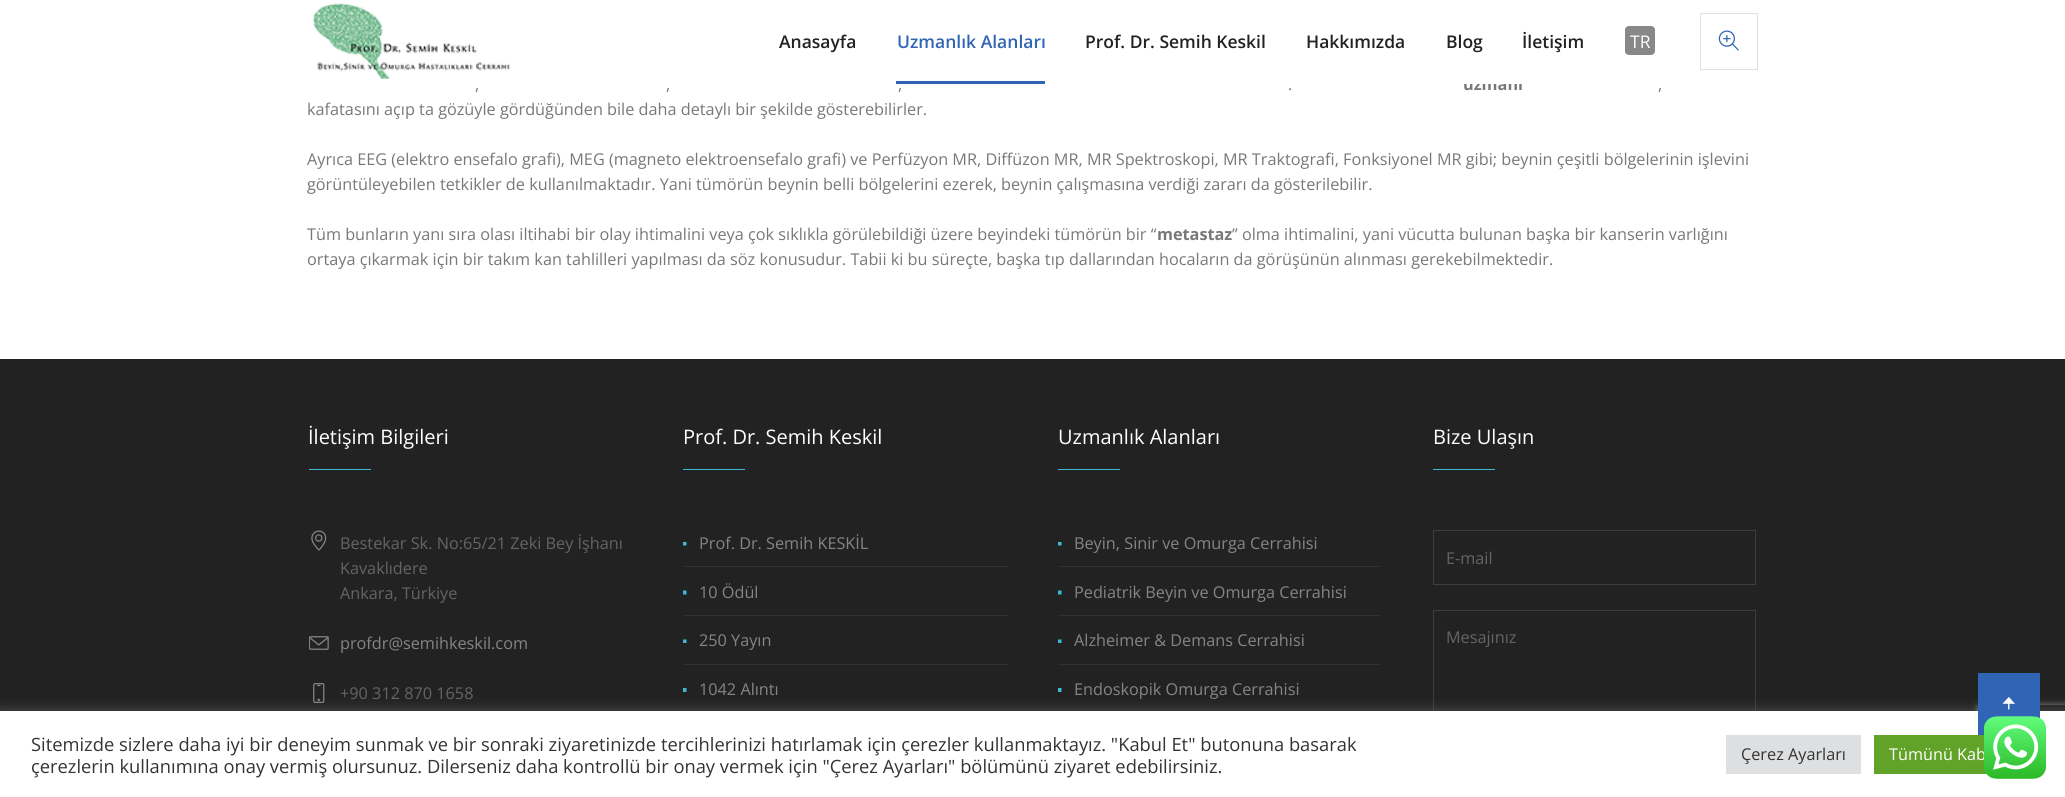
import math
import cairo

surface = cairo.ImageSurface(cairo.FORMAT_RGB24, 2065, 797)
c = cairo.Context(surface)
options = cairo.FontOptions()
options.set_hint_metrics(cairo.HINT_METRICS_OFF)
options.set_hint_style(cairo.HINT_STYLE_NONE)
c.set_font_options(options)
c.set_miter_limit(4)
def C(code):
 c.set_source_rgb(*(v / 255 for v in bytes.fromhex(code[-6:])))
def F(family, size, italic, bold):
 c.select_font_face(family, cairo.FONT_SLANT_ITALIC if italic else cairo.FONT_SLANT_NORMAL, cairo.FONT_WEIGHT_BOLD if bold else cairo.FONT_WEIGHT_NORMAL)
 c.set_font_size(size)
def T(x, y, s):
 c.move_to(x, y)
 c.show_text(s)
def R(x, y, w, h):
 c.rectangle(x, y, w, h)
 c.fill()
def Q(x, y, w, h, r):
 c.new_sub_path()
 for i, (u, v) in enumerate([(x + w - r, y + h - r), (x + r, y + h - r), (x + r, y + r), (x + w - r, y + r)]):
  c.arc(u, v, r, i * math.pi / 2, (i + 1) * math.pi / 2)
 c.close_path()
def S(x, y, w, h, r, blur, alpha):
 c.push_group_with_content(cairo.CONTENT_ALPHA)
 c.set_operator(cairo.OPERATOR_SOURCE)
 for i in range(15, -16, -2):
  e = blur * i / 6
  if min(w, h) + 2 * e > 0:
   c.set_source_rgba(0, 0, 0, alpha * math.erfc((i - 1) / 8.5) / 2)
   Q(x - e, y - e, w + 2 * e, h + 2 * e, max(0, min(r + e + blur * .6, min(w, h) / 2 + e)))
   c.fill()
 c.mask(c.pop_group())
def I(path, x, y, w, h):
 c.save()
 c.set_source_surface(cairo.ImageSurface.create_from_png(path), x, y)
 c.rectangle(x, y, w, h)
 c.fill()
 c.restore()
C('ffffff')
c.paint()
F('Open Sans',16.25,0,1)
C('787878')
T(1463,90,'uzmanı')
C('ffffff')
R(1463,81,59,3)
I('1.png',313,3,198,76)
F('Open Sans SemiBold',17.5,0,0)
C('222222')
T(779,48,'Anasayfa')
C('3065b5')
T(897,48,'Uzmanlık Alanları')
C('222222')
T(1085,48,'Prof. Dr. Semih Keskil')
T(1306,48,'Hakkımızda')
T(1446,48,'Blog')
T(1522,48,'İletişim')
C('888888')
Q(1625,26,30,29,4)
c.fill()
F('Open Sans',17.5,0,0)
C('ffffff')
T(1630,48,'TR')
C('3065b5')
R(896,81,149,3)
c.rectangle(1700.5,13.5,57,56)
C('e0e0e0')
c.set_line_width(1)
c.stroke()
I('2.png',1718,30,21,21)
F('Open Sans',16.25,0,0)
C('787878')
T(475,90,',')
T(666,90,',')
T(898,90,',')
T(1288,90,'.')
T(1658,90,',')
T(307,115,'kafatasını açıp ta gözüyle gördüğünden bile daha detaylı bir şekilde gösterebilirler.')
T(307,165,'Ayrıca EEG (elektro ensefalo grafi), MEG (magneto elektroensefalo grafi) ve Perfüzyon MR, Diffüzon MR, MR Spektroskopi, MR Traktografi, Fonksiyonel MR gibi; beynin çeşitli bölgelerinin işlevini')
T(307,190,'görüntüleyebilen tetkikler de kullanılmaktadır. Yani tümörün beynin belli bölgelerini ezerek, beynin çalışmasına verdiği zararı da gösterilebilir.')
T(307,240,'Tüm bunların yanı sıra olası iltihabi bir olay ihtimalini veya çok sıklıkla görülebildiği üzere beyindeki tümörün bir “')
F('Open Sans',16.25,0,1)
T(1157,240,'metastaz')
F('Open Sans',16.25,0,0)
T(1232,240,'” olma ihtimalini, yani vücutta bulunan başka bir kanserin varlığını')
T(307,265,'ortaya çıkarmak için bir takım kan tahlilleri yapılması da söz konusudur. Tabii ki bu süreçte, başka tıp dallarından hocaların da görüşünün alınması gerekebilmektedir.')
C('222222')
R(0,359,2065,352)
F('Open Sans',20,0,0)
C('ffffff')
T(308,444,'İletişim Bilgileri')
C('3eb8d7')
R(309,469,62,1)
I('3.png',311,530,16,21)
F('Open Sans',16.25,0,0)
C('646464')
T(340,549,'Bestekar Sk. No:65/21 Zeki Bey İşhanı')
T(340,574,'Kavaklıdere')
T(340,599,'Ankara, Türkiye')
I('4.png',309,636,20,14)
C('858585')
T(340,649,'profdr@semihkeskil.com')
I('5.png',313,683,12,20)
C('646464')
T(340,699,'+90 312 870 1658')
F('Open Sans',20,0,0)
C('ffffff')
T(683,444,'Prof. Dr. Semih Keskil')
C('3eb8d7')
R(683,469,62,1)
C('313131')
R(683,566,325,1)
c.save()
c.rectangle(683,530,325,36)
c.clip()
C('3eb8d7')
c.new_path()
c.move_to(686.5,542)
c.line_to(686.5,545.5)
c.line_to(682.5,545.5)
c.line_to(682.5,542)
c.close_path()
c.fill()
c.restore()
F('Open Sans',16.25,0,0)
C('858585')
T(699,549,'Prof. Dr. Semih KESKİL')
C('313131')
R(683,615,325,1)
c.save()
c.rectangle(683,568,325,47)
c.clip()
C('3eb8d7')
c.new_path()
c.move_to(686.5,590.5)
c.line_to(686.5,594.5)
c.line_to(682.5,594.5)
c.line_to(682.5,590.5)
c.close_path()
c.fill()
c.restore()
C('858585')
T(699,598,'10 Ödül')
C('313131')
R(683,664,325,1)
c.save()
c.rectangle(683,616,325,48)
c.clip()
C('3eb8d7')
c.new_path()
c.move_to(686.5,639.5)
c.line_to(686.5,643)
c.line_to(682.5,643)
c.line_to(682.5,639.5)
c.close_path()
c.fill()
c.restore()
C('858585')
T(699,646,'250 Yayın')
c.save()
c.rectangle(683,665,325,48)
c.clip()
C('3eb8d7')
c.new_path()
c.move_to(686.5,688)
c.line_to(686.5,692)
c.line_to(682.5,692)
c.line_to(682.5,688)
c.close_path()
c.fill()
c.restore()
T(699,695,'1042 Alıntı')
F('Open Sans',20,0,0)
C('ffffff')
T(1058,444,'Uzmanlık Alanları')
C('3eb8d7')
R(1058,469,62,1)
C('313131')
R(1058,566,323,1)
c.save()
c.rectangle(1058,530,323,36)
c.clip()
C('3eb8d7')
c.new_path()
c.move_to(1061.5,542)
c.line_to(1061.5,545.5)
c.line_to(1057.5,545.5)
c.line_to(1057.5,542)
c.close_path()
c.fill()
c.restore()
F('Open Sans',16.25,0,0)
C('858585')
T(1074,549,'Beyin, Sinir ve Omurga Cerrahisi')
C('313131')
R(1058,615,323,1)
c.save()
c.rectangle(1058,568,323,47)
c.clip()
C('3eb8d7')
c.new_path()
c.move_to(1061.5,590.5)
c.line_to(1061.5,594.5)
c.line_to(1057.5,594.5)
c.line_to(1057.5,590.5)
c.close_path()
c.fill()
c.restore()
C('858585')
T(1074,598,'Pediatrik Beyin ve Omurga Cerrahisi')
C('313131')
R(1058,664,323,1)
c.save()
c.rectangle(1058,616,323,48)
c.clip()
C('3eb8d7')
c.new_path()
c.move_to(1061.5,639.5)
c.line_to(1061.5,643)
c.line_to(1057.5,643)
c.line_to(1057.5,639.5)
c.close_path()
c.fill()
c.restore()
C('858585')
T(1074,646,'Alzheimer & Demans Cerrahisi')
c.save()
c.rectangle(1058,665,323,48)
c.clip()
C('3eb8d7')
c.new_path()
c.move_to(1061.5,688)
c.line_to(1061.5,692)
c.line_to(1057.5,692)
c.line_to(1057.5,688)
c.close_path()
c.fill()
c.restore()
T(1074,695,'Endoskopik Omurga Cerrahisi')
F('Open Sans',20,0,0)
C('ffffff')
T(1433,444,'Bize Ulaşın')
C('3eb8d7')
R(1433,469,62,1)
c.rectangle(1433.5,530.5,322,54)
C('3d3d3d')
c.stroke()
F('Open Sans',16.25,0,0)
C('646464')
T(1446,564,'E-mail')
c.rectangle(1433.5,610.5,322,102)
C('3d3d3d')
c.stroke()
C('646464')
T(1446,643,'Mesajınız')
c.save()
c.set_fill_rule(cairo.FILL_RULE_EVEN_ODD)
c.new_path()
c.move_to(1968,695)
c.line_to(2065,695)
c.line_to(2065,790)
c.line_to(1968,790)
c.close_path()
c.move_to(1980.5,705)
c.line_to(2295.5,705)
c.curve_to(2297,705,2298,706,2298,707.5)
c.line_to(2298,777.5)
c.curve_to(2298,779,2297,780,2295.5,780)
c.line_to(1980.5,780)
c.curve_to(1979,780,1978,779,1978,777.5)
c.line_to(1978,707.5)
c.curve_to(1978,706,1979,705,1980.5,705)
c.close_path()
c.clip()
C('808080')
S(1978,705,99,75,2.5,3,1)
c.restore()
C('acabab')
S(0,710,2065,86,0,6,.3)
C('ffffff')
R(0,711,2065,86)
C('3065b5')
R(1978,673,62,62)
I('6.png',2002,697,13,13)
F('Open Sans',18.33,0,0)
C('333333')
T(31,751,'Sitemizde sizlere daha iyi bir deneyim sunmak ve bir sonraki ziyaretinizde tercihlerinizi hatırlamak için çerezler kullanmaktayız. "Kabul Et" butonuna basarak')
T(31,773,'çerezlerin kullanımına onay vermiş olursunuz. Dilerseniz daha kontrollü bir onay vermek için "Çerez Ayarları" bölümünü ziyaret edebilirsiniz.')
C('dedfe0')
R(1726,735,135,39)
F('Open Sans',16.25,0,0)
C('333333')
T(1741,760,'Çerez Ayarları')
C('61a229')
R(1874,735,113,39)
C('ffffff')
T(1889,760,'Tümünü Kab')
I('7.png',1984,716,62,63)
surface.write_to_png('o.png')
